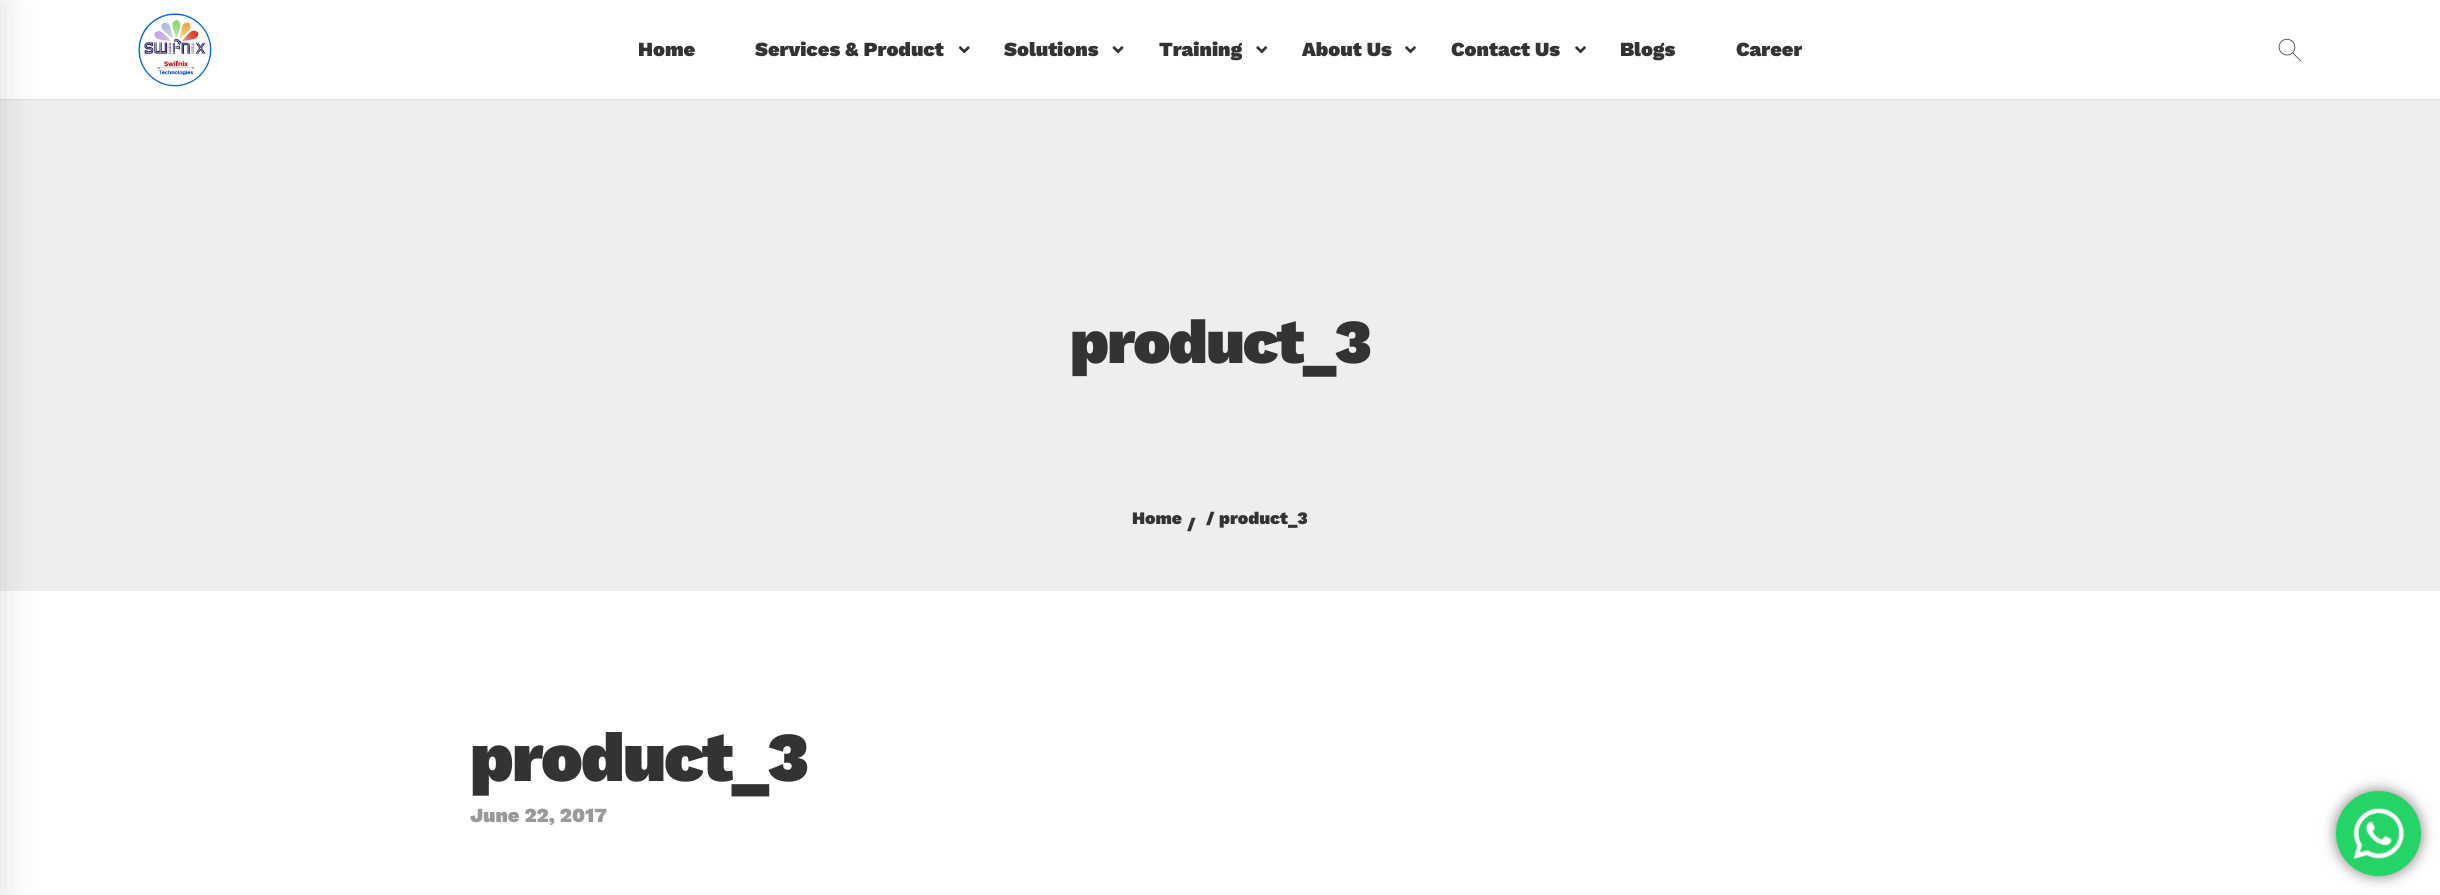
import math
import cairo

surface = cairo.ImageSurface(cairo.FORMAT_RGB24, 2440, 895)
c = cairo.Context(surface)
options = cairo.FontOptions()
options.set_hint_metrics(cairo.HINT_METRICS_OFF)
options.set_hint_style(cairo.HINT_STYLE_NONE)
c.set_font_options(options)
c.set_miter_limit(4)
def C(code):
 c.set_source_rgb(*(v / 255 for v in bytes.fromhex(code[-6:])))
def F(family, size, italic, bold):
 c.select_font_face(family, cairo.FONT_SLANT_ITALIC if italic else cairo.FONT_SLANT_NORMAL, cairo.FONT_WEIGHT_BOLD if bold else cairo.FONT_WEIGHT_NORMAL)
 c.set_font_size(size)
def T(x, y, s):
 c.move_to(x, y)
 c.show_text(s)
def L(x, y, s, letter, word):
 c.move_to(x, y)
 for ch in s:
  c.show_text(ch)
  c.rel_move_to(letter + word * (ch == ' '), 0)
def R(x, y, w, h):
 c.rectangle(x, y, w, h)
 c.fill()
def Q(x, y, w, h, r):
 c.new_sub_path()
 for i, (u, v) in enumerate([(x + w - r, y + h - r), (x + r, y + h - r), (x + r, y + r), (x + w - r, y + r)]):
  c.arc(u, v, r, i * math.pi / 2, (i + 1) * math.pi / 2)
 c.close_path()
def S(x, y, w, h, r, blur, alpha):
 c.push_group_with_content(cairo.CONTENT_ALPHA)
 c.set_operator(cairo.OPERATOR_SOURCE)
 for i in range(15, -16, -2):
  e = blur * i / 6
  if min(w, h) + 2 * e > 0:
   c.set_source_rgba(0, 0, 0, alpha * math.erfc((i - 1) / 8.5) / 2)
   Q(x - e, y - e, w + 2 * e, h + 2 * e, max(0, min(r + e + blur * .6, min(w, h) / 2 + e)))
   c.fill()
 c.mask(c.pop_group())
def I(path, x, y, w, h):
 c.save()
 c.set_source_surface(cairo.ImageSurface.create_from_png(path), x, y)
 c.rectangle(x, y, w, h)
 c.fill()
 c.restore()
C('ffffff')
c.paint()
C('dddddd')
R(0,99,2440,1)
C('eeeeee')
R(0,100,2440,491)
C('000000')
S(-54,1,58,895,0,18,.12)
I('1.png',138,13,74,74)
I('2.png',2278,38,24,24)
F('Work Sans Black',20,0,0)
C('333333')
T(638,56,'Home')
T(755,56,'Services & Product')
I('3.png',958,46,12,8)
T(1004,56,'Solutions')
I('4.png',1112,46,12,8)
T(1159,56,'Training')
I('5.png',1256,46,12,8)
T(1302,56,'About Us')
I('6.png',1405,46,11,8)
T(1451,56,'Contact Us')
I('6.png',1575,46,11,8)
T(1620,56,'Blogs')
T(1736,56,'Career')
F('Work Sans Black',62.5,0,0)
L(1070,363,'product_3',-1.9,0)
F('Work Sans Black',17.5,0,0)
T(1132,524,'Home')
T(1187,530,'/')
T(1206,524,'/')
T(1219,524,'product_3')
F('Work Sans Black',70,0,0)
L(470,781,'product_3',-2,0)
F('Work Sans Black',20,0,0)
C('999999')
T(470,822,'June 22, 2017')
C('000000')
S(2336,791,85,85,42.5,7,.5)
C('25d366')
c.arc(2378.5,833.5,42.5,0,2 * math.pi)
c.fill()
I('7.png',2353,808,51,51)
surface.write_to_png('o.png')
